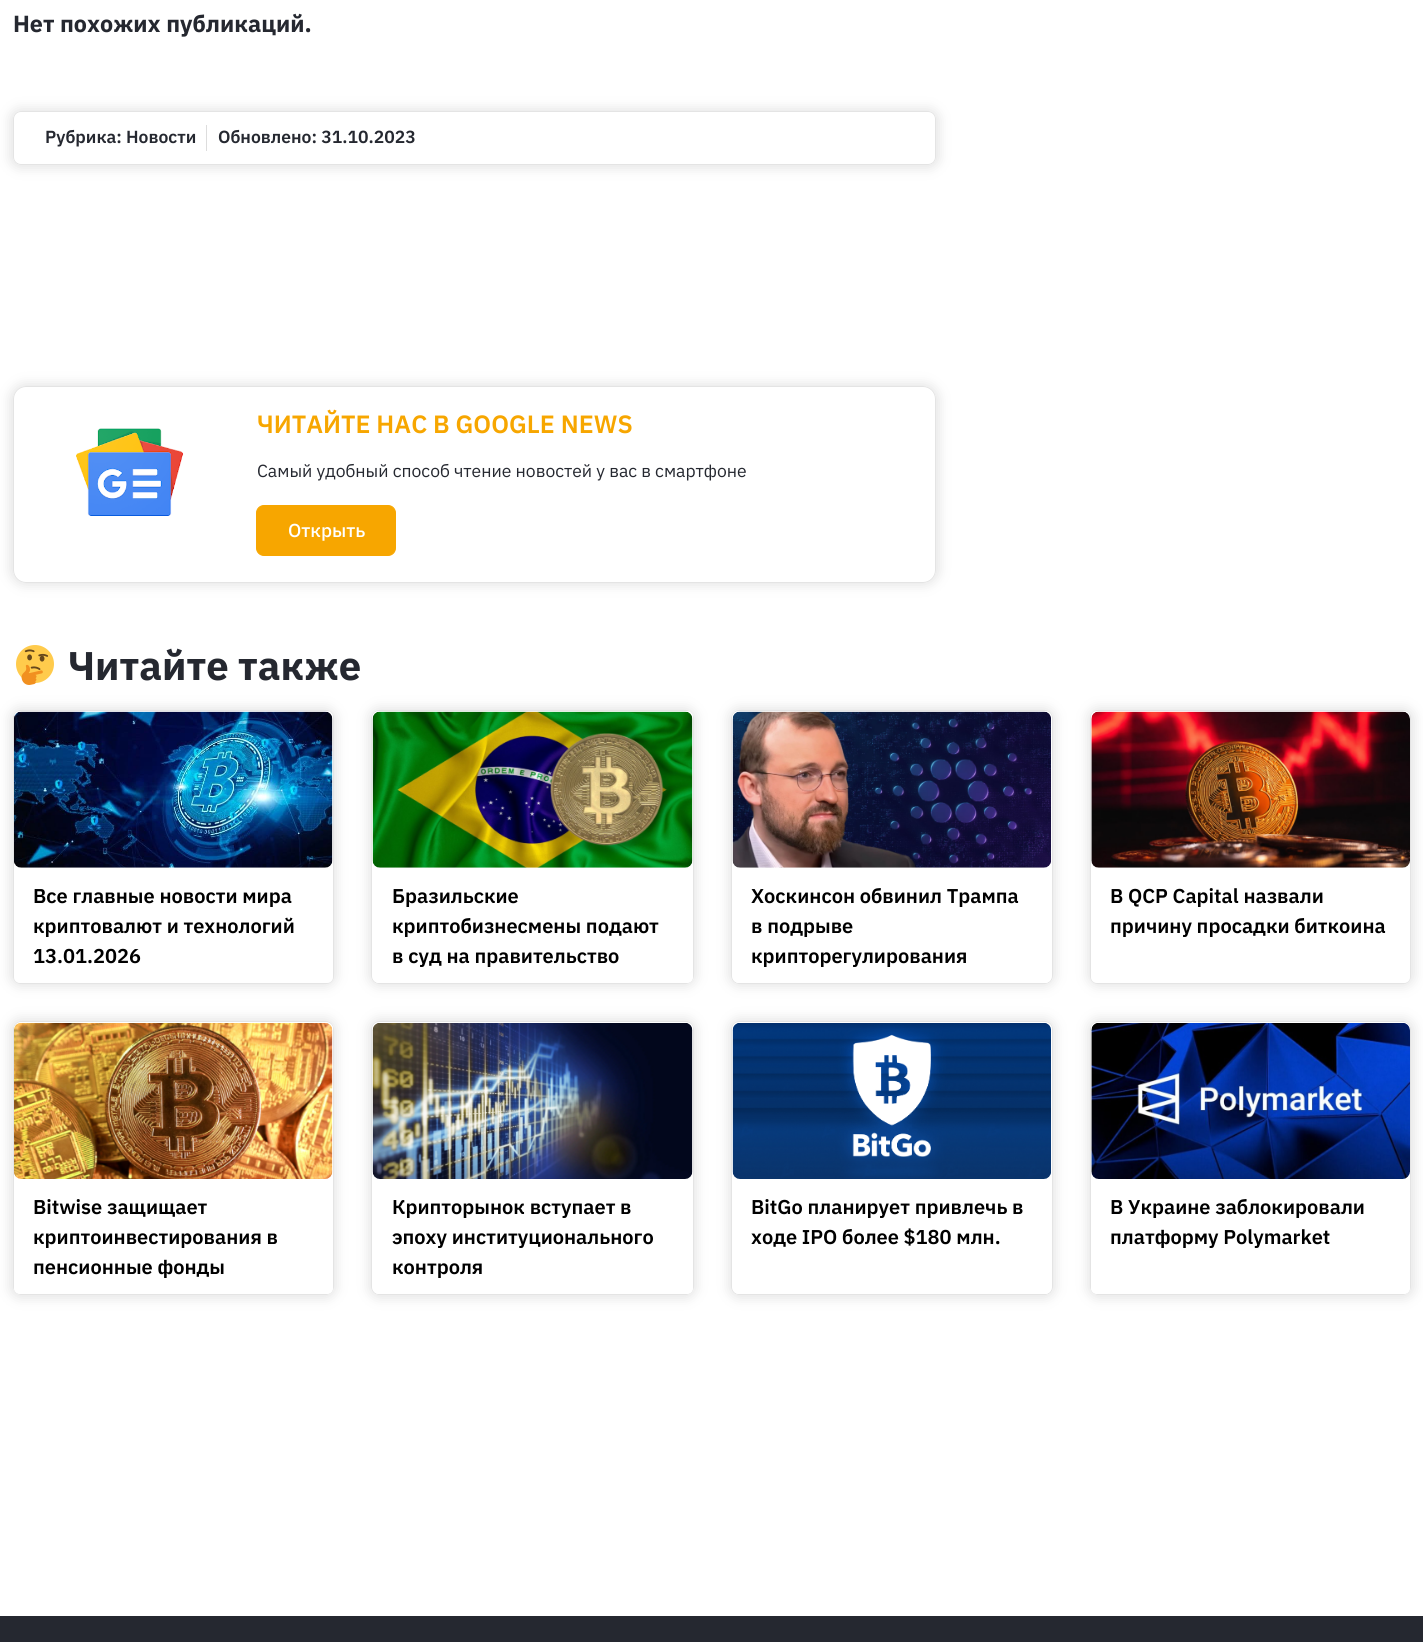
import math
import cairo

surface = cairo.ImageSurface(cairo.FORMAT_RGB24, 1423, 1642)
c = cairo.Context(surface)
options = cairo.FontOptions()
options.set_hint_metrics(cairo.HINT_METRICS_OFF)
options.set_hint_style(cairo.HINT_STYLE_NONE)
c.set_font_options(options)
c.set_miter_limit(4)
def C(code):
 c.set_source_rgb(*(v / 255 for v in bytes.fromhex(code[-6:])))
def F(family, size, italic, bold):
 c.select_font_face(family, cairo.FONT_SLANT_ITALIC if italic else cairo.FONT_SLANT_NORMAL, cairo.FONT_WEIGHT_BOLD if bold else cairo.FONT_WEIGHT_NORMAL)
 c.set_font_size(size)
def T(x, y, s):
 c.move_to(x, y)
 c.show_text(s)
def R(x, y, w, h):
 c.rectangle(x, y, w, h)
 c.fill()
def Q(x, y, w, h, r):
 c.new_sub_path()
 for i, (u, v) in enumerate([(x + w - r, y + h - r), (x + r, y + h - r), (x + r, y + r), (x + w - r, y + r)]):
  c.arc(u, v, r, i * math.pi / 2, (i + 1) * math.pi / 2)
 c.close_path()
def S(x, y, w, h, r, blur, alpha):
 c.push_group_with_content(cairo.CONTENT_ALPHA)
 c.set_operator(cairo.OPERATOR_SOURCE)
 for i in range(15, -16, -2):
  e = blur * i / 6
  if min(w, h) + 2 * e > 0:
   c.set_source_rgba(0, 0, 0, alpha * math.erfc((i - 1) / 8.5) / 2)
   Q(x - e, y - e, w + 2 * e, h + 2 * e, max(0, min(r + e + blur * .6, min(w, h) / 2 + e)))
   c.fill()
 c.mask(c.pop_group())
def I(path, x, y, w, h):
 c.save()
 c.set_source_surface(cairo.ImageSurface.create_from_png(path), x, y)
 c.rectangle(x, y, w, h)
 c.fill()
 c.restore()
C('ffffff')
c.paint()
F('IBM Plex Sans',23.3,0,1)
C('252830')
T(13,32,'Нет похожих публикаций.')
c.save()
c.set_fill_rule(cairo.FILL_RULE_EVEN_ODD)
c.new_path()
c.move_to(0,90)
c.line_to(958,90)
c.line_to(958,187)
c.line_to(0,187)
c.close_path()
c.move_to(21,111)
c.line_to(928,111)
c.curve_to(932.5,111,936,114.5,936,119)
c.line_to(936,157)
c.curve_to(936,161.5,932.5,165,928,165)
c.line_to(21,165)
c.curve_to(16.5,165,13,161.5,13,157)
c.line_to(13,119)
c.curve_to(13,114.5,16.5,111,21,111)
c.close_path()
c.clip()
C('e4e4e4')
S(10,109,929,59,10,6,1)
c.restore()
Q(13.5,111.5,922,53,7.5)
C('e4e4e4')
c.set_line_width(1)
c.stroke()
F('IBM Plex Sans SemiBold',17.5,0,0)
C('252830')
T(45,143,'Рубрика: Новости')
C('dddddd')
R(206,125,1,26)
C('252830')
T(218,143,'Обновлено: 31.10.2023')
c.save()
c.set_fill_rule(cairo.FILL_RULE_EVEN_ODD)
c.new_path()
c.move_to(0,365)
c.line_to(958,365)
c.line_to(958,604)
c.line_to(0,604)
c.close_path()
c.move_to(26,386)
c.line_to(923,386)
c.curve_to(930,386,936,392,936,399)
c.line_to(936,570)
c.curve_to(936,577,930,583,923,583)
c.line_to(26,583)
c.curve_to(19,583,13,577,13,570)
c.line_to(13,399)
c.curve_to(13,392,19,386,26,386)
c.close_path()
c.clip()
C('e4e4e4')
S(10,384,929,201,15,6,1)
c.restore()
Q(13.5,386.5,922,196,12.5)
C('e4e4e4')
c.stroke()
I('1.png',76,428,108,88)
F('IBM Plex Sans SemiBold',25,0,0)
C('f7a600')
T(257,433,'ЧИТАЙТЕ НАС В GOOGLE NEWS')
F('IBM Plex Sans',17.5,0,0)
C('252830')
T(257,477,'Самый удобный способ чтение новостей у вас в смартфоне')
C('f7a600')
Q(256.5,505.5,139,50,7.5)
c.fill_preserve()
c.stroke()
F('IBM Plex Sans Medium',18.75,0,0)
C('ffffff')
T(288,537,'Открыть')
I('2.png',16,645,38,40)
F('IBM Plex Sans',40,0,1)
C('252830')
T(68,680,'Читайте также')
C('e4e4e4')
S(10,708,326,278,10,6,1)
Q(13.5,710.5,320,273,7.5)
C('e4e4e4')
c.stroke()
C('ffffff')
c.new_path()
c.move_to(20,711)
c.line_to(327,711)
c.curve_to(330.5,711,333,713.5,333,717)
c.line_to(333,868)
c.line_to(14,868)
c.line_to(14,717)
c.curve_to(14,713.5,16.5,711,20,711)
c.close_path()
c.fill()
I('3.png',14,711,319,157)
c.new_path()
c.move_to(14,868)
c.line_to(333,868)
c.line_to(333,977)
c.curve_to(333,980.5,330.5,983,327,983)
c.line_to(20,983)
c.curve_to(16.5,983,14,980.5,14,977)
c.close_path()
c.fill()
F('IBM Plex Sans SemiBold',20,0,0)
C('000000')
T(33,903,'Все главные новости мира')
T(33,933,'криптовалют и технологий')
T(33,963,'13.01.2026')
c.save()
c.set_fill_rule(cairo.FILL_RULE_EVEN_ODD)
c.new_path()
c.move_to(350,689)
c.line_to(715,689)
c.line_to(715,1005)
c.line_to(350,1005)
c.close_path()
c.move_to(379,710)
c.line_to(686,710)
c.curve_to(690.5,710,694,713.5,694,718)
c.line_to(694,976)
c.curve_to(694,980.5,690.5,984,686,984)
c.line_to(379,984)
c.curve_to(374.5,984,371,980.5,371,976)
c.line_to(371,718)
c.curve_to(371,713.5,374.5,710,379,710)
c.close_path()
c.clip()
C('e4e4e4')
S(369,708,327,278,10,6,1)
c.restore()
Q(371.5,710.5,322,273,7.5)
C('e4e4e4')
c.stroke()
C('ffffff')
c.new_path()
c.move_to(379,711)
c.line_to(687,711)
c.curve_to(690.5,711,693,713.5,693,717)
c.line_to(693,868)
c.line_to(373,868)
c.line_to(373,717)
c.curve_to(373,713.5,375.5,711,379,711)
c.close_path()
c.fill()
I('4.png',372,711,321,157)
c.new_path()
c.move_to(373,868)
c.line_to(693,868)
c.line_to(693,977)
c.curve_to(693,980.5,690.5,983,687,983)
c.line_to(379,983)
c.curve_to(375.5,983,373,980.5,373,977)
c.close_path()
c.fill()
C('000000')
T(392,903,'Бразильские')
T(392,933,'криптобизнесмены подают')
T(392,963,'в суд на правительство')
c.save()
c.set_fill_rule(cairo.FILL_RULE_EVEN_ODD)
c.new_path()
c.move_to(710,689)
c.line_to(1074,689)
c.line_to(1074,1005)
c.line_to(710,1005)
c.close_path()
c.move_to(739,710)
c.line_to(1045,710)
c.curve_to(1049.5,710,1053,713.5,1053,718)
c.line_to(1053,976)
c.curve_to(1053,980.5,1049.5,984,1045,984)
c.line_to(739,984)
c.curve_to(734.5,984,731,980.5,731,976)
c.line_to(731,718)
c.curve_to(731,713.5,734.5,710,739,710)
c.close_path()
c.clip()
C('e4e4e4')
S(729,708,326,278,10,6,1)
c.restore()
Q(731.5,710.5,321,273,7.5)
C('e4e4e4')
c.stroke()
C('ffffff')
c.new_path()
c.move_to(739,711)
c.line_to(1045,711)
c.curve_to(1048.5,711,1051,713.5,1051,717)
c.line_to(1051,868)
c.line_to(733,868)
c.line_to(733,717)
c.curve_to(733,713.5,735.5,711,739,711)
c.close_path()
c.fill()
I('5.png',732,711,319,157)
c.new_path()
c.move_to(733,868)
c.line_to(1051,868)
c.line_to(1051,977)
c.curve_to(1051,980.5,1048.5,983,1045,983)
c.line_to(739,983)
c.curve_to(735.5,983,733,980.5,733,977)
c.close_path()
c.fill()
C('000000')
T(751,903,'Хоскинсон обвинил Трампа')
T(751,933,'в подрыве')
T(751,963,'крипторегулирования')
C('e4e4e4')
S(1088,708,326,278,10,6,1)
Q(1090.5,710.5,320,273,7.5)
C('e4e4e4')
c.stroke()
C('ffffff')
c.new_path()
c.move_to(1097,711)
c.line_to(1404,711)
c.curve_to(1407.5,711,1410,713.5,1410,717)
c.line_to(1410,868)
c.line_to(1091,868)
c.line_to(1091,717)
c.curve_to(1091,713.5,1093.5,711,1097,711)
c.close_path()
c.fill()
I('6.png',1091,711,319,157)
c.new_path()
c.move_to(1091,868)
c.line_to(1410,868)
c.line_to(1410,977)
c.curve_to(1410,980.5,1407.5,983,1404,983)
c.line_to(1097,983)
c.curve_to(1093.5,983,1091,980.5,1091,977)
c.close_path()
c.fill()
C('000000')
T(1110,903,'В QCP Capital назвали')
T(1110,933,'причину просадки биткоина')
c.save()
c.set_fill_rule(cairo.FILL_RULE_EVEN_ODD)
c.new_path()
c.move_to(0,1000)
c.line_to(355,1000)
c.line_to(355,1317)
c.line_to(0,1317)
c.close_path()
c.move_to(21,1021)
c.line_to(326,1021)
c.curve_to(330.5,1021,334,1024.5,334,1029)
c.line_to(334,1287)
c.curve_to(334,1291.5,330.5,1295,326,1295)
c.line_to(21,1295)
c.curve_to(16.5,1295,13,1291.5,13,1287)
c.line_to(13,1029)
c.curve_to(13,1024.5,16.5,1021,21,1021)
c.close_path()
c.clip()
C('e4e4e4')
S(10,1019,326,279,10,6,1)
c.restore()
Q(13.5,1021.5,320,273,7.5)
C('e4e4e4')
c.stroke()
C('ffffff')
c.new_path()
c.move_to(20,1023)
c.line_to(327,1023)
c.curve_to(330.5,1023,333,1025.5,333,1029)
c.line_to(333,1179)
c.line_to(14,1179)
c.line_to(14,1029)
c.curve_to(14,1025.5,16.5,1023,20,1023)
c.close_path()
c.fill()
I('7.png',14,1023,319,156)
c.new_path()
c.move_to(14,1179)
c.line_to(333,1179)
c.line_to(333,1288)
c.curve_to(333,1291.5,330.5,1294,327,1294)
c.line_to(20,1294)
c.curve_to(16.5,1294,14,1291.5,14,1288)
c.close_path()
c.fill()
C('000000')
T(33,1214,'Bitwise защищает')
T(33,1244,'криптоинвестирования в')
T(33,1274,'пенсионные фонды')
c.save()
c.set_fill_rule(cairo.FILL_RULE_EVEN_ODD)
c.new_path()
c.move_to(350,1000)
c.line_to(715,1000)
c.line_to(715,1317)
c.line_to(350,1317)
c.close_path()
c.move_to(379,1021)
c.line_to(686,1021)
c.curve_to(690.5,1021,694,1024.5,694,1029)
c.line_to(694,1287)
c.curve_to(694,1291.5,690.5,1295,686,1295)
c.line_to(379,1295)
c.curve_to(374.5,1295,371,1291.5,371,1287)
c.line_to(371,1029)
c.curve_to(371,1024.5,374.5,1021,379,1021)
c.close_path()
c.clip()
C('e4e4e4')
S(369,1019,327,279,10,6,1)
c.restore()
Q(371.5,1021.5,322,273,7.5)
C('e4e4e4')
c.stroke()
C('ffffff')
c.new_path()
c.move_to(379,1023)
c.line_to(687,1023)
c.curve_to(690.5,1023,693,1025.5,693,1029)
c.line_to(693,1179)
c.line_to(373,1179)
c.line_to(373,1029)
c.curve_to(373,1025.5,375.5,1023,379,1023)
c.close_path()
c.fill()
I('8.png',372,1023,321,156)
c.new_path()
c.move_to(373,1179)
c.line_to(693,1179)
c.line_to(693,1288)
c.curve_to(693,1291.5,690.5,1294,687,1294)
c.line_to(379,1294)
c.curve_to(375.5,1294,373,1291.5,373,1288)
c.close_path()
c.fill()
C('000000')
T(392,1214,'Крипторынок вступает в')
T(392,1244,'эпоху институционального')
T(392,1274,'контроля')
c.save()
c.set_fill_rule(cairo.FILL_RULE_EVEN_ODD)
c.new_path()
c.move_to(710,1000)
c.line_to(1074,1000)
c.line_to(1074,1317)
c.line_to(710,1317)
c.close_path()
c.move_to(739,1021)
c.line_to(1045,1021)
c.curve_to(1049.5,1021,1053,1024.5,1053,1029)
c.line_to(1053,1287)
c.curve_to(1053,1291.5,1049.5,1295,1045,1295)
c.line_to(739,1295)
c.curve_to(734.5,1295,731,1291.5,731,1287)
c.line_to(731,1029)
c.curve_to(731,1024.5,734.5,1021,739,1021)
c.close_path()
c.clip()
C('e4e4e4')
S(729,1019,326,279,10,6,1)
c.restore()
Q(731.5,1021.5,321,273,7.5)
C('e4e4e4')
c.stroke()
I('9.png',732,1023,319,156)
C('ffffff')
c.new_path()
c.move_to(733,1179)
c.line_to(1051,1179)
c.line_to(1051,1288)
c.curve_to(1051,1291.5,1048.5,1294,1045,1294)
c.line_to(739,1294)
c.curve_to(735.5,1294,733,1291.5,733,1288)
c.close_path()
c.fill()
C('000000')
T(751,1214,'BitGo планирует привлечь в')
T(751,1244,'ходе IPO более $180 млн.')
c.save()
c.set_fill_rule(cairo.FILL_RULE_EVEN_ODD)
c.new_path()
c.move_to(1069,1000)
c.line_to(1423,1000)
c.line_to(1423,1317)
c.line_to(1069,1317)
c.close_path()
c.move_to(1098,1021)
c.line_to(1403,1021)
c.curve_to(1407.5,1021,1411,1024.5,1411,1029)
c.line_to(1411,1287)
c.curve_to(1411,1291.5,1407.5,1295,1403,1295)
c.line_to(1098,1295)
c.curve_to(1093.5,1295,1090,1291.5,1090,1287)
c.line_to(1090,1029)
c.curve_to(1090,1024.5,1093.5,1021,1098,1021)
c.close_path()
c.clip()
C('e4e4e4')
S(1088,1019,326,279,10,6,1)
c.restore()
Q(1090.5,1021.5,320,273,7.5)
C('e4e4e4')
c.stroke()
C('ffffff')
c.new_path()
c.move_to(1097,1023)
c.line_to(1404,1023)
c.curve_to(1407.5,1023,1410,1025.5,1410,1029)
c.line_to(1410,1179)
c.line_to(1091,1179)
c.line_to(1091,1029)
c.curve_to(1091,1025.5,1093.5,1023,1097,1023)
c.close_path()
c.fill()
I('10.png',1091,1023,319,156)
c.new_path()
c.move_to(1091,1179)
c.line_to(1410,1179)
c.line_to(1410,1288)
c.curve_to(1410,1291.5,1407.5,1294,1404,1294)
c.line_to(1097,1294)
c.curve_to(1093.5,1294,1091,1291.5,1091,1288)
c.close_path()
c.fill()
C('000000')
T(1110,1214,'В Украине заблокировали')
T(1110,1244,'платформу Polymarket')
C('252830')
R(0,1616,1423,26)
surface.write_to_png('o.png')
